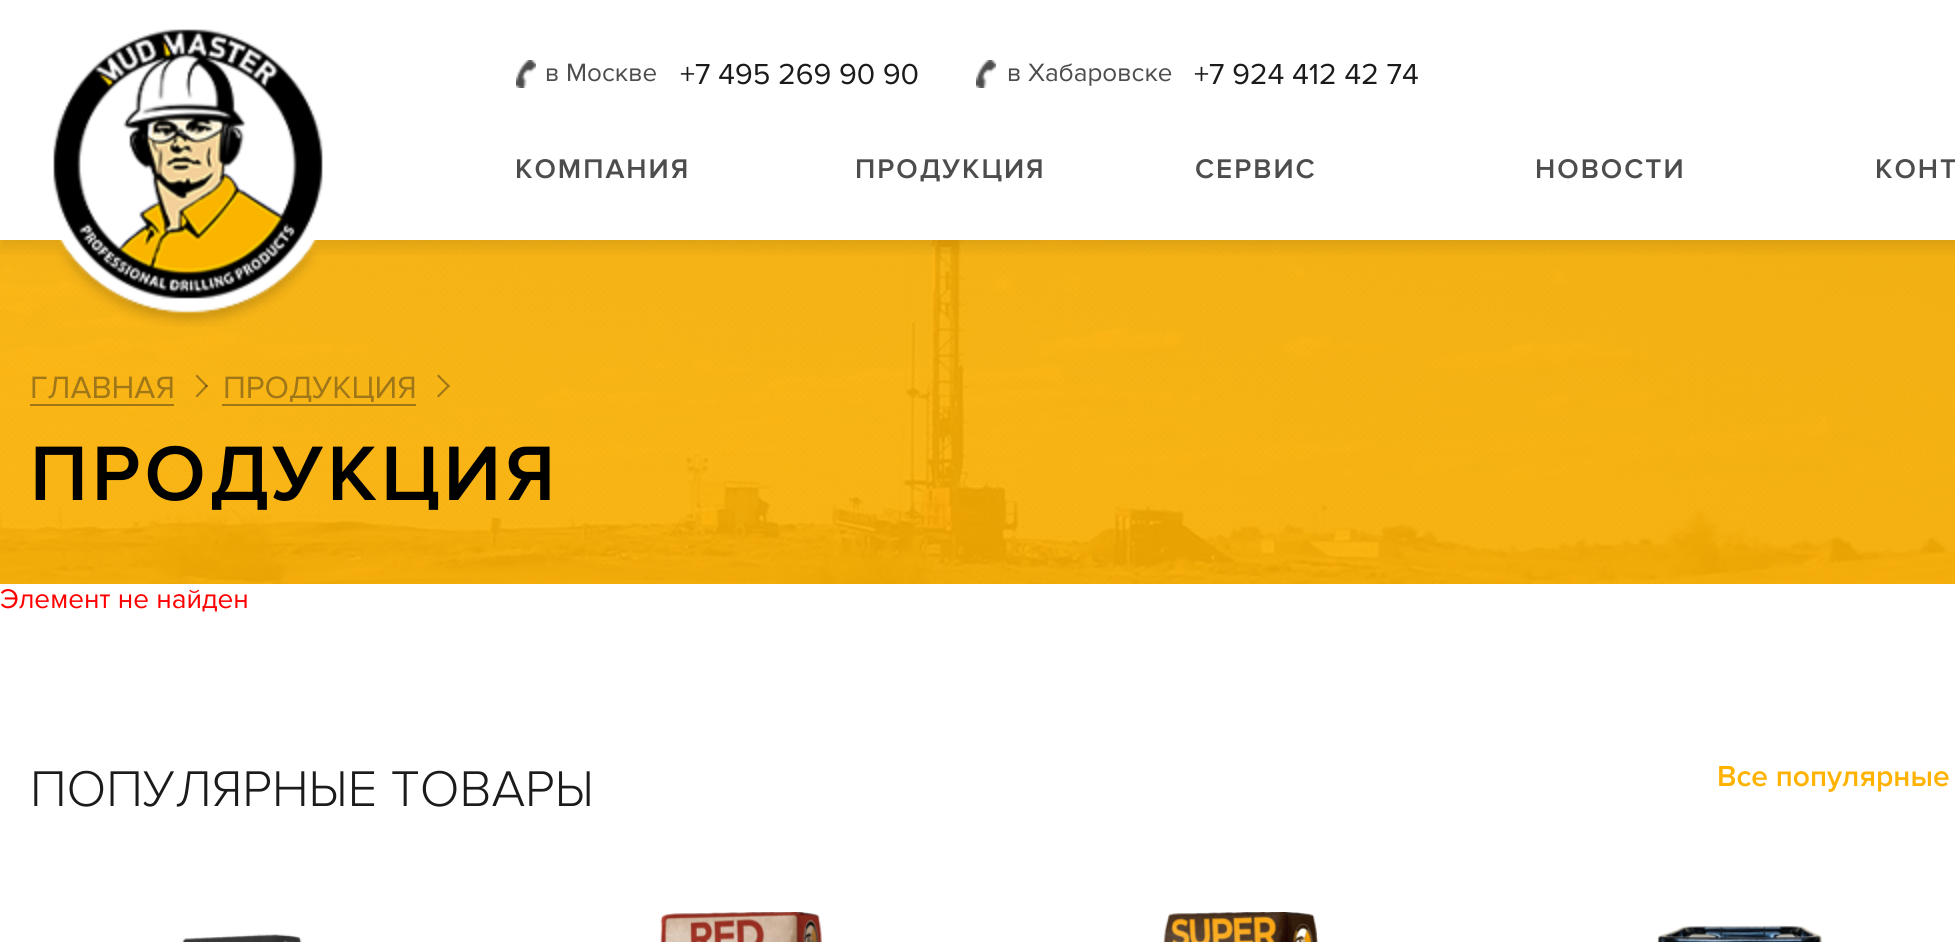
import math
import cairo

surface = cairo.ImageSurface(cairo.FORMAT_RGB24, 1955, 942)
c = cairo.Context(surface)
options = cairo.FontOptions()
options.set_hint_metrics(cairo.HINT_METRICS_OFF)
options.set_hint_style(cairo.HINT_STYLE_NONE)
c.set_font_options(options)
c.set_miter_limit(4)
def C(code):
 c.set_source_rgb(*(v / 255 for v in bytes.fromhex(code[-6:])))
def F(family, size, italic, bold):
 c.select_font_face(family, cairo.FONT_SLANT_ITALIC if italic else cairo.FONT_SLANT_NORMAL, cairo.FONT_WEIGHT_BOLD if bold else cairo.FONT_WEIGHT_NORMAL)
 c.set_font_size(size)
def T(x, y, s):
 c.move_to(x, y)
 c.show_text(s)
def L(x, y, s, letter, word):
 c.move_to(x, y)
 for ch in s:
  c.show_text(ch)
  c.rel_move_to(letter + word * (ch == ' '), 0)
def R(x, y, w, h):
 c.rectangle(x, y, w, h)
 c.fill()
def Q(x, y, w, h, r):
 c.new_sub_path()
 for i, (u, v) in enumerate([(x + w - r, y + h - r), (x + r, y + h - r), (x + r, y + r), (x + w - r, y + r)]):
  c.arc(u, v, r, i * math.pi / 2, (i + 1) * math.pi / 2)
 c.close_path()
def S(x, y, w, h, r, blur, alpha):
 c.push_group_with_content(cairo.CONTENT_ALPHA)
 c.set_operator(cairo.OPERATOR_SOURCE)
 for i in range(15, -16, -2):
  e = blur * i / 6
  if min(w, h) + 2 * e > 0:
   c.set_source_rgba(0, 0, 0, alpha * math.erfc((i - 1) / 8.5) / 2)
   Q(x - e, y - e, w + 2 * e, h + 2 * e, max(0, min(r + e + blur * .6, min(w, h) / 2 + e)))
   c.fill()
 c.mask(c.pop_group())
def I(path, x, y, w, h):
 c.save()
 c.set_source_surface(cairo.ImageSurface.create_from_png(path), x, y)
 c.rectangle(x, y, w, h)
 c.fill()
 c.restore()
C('ffffff')
c.paint()
I('5.png',0,240,1955,344)
c.save()
c.rectangle(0,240,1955,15)
c.clip()
C('000000')
S(0,8,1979,240,0,8,.1)
c.restore()
I('1.png',53,29,270,298)
I('2.png',516,60,20,28)
F('Proxima Nova',26,0,0)
C('4d4d4d')
T(545,81,'в Москве')
I('3.png',680,63,238,22)
I('2.png',976,60,20,28)
T(1007,81,'в Хабаровске')
I('4.png',1194,63,224,22)
F('Proxima Nova SemiBold',28,0,0)
L(515,178,'КОМПАНИЯ',2,0)
L(855,178,'ПРОДУКЦИЯ',2,0)
L(1195,178,'СЕРВИС',2,0)
L(1535,178,'НОВОСТИ',2,0)
L(1875,178,'КОНТ',2,0)
F('Proxima Nova',32,0,0)
C('a07718')
T(30,398,'ГЛАВНАЯ')
c.set_source_rgba(0.106,0.106,0.106,0.4)
R(30,404,144,2)
c.new_path()
c.move_to(197,374.5)
c.line_to(208,386)
c.line_to(206.5,387.5)
c.line_to(195.5,376)
c.close_path()
c.fill()
c.new_path()
c.move_to(206.5,384.5)
c.line_to(208,386)
c.line_to(197,397.5)
c.line_to(195.5,396)
c.close_path()
c.fill()
C('a07718')
T(223,398,'ПРОДУКЦИЯ')
c.set_source_rgba(0.106,0.106,0.106,0.4)
R(222,404,194,2)
c.new_path()
c.move_to(438.5,374.5)
c.line_to(450,386)
c.line_to(448.5,387.5)
c.line_to(437,376)
c.close_path()
c.fill()
C('9f7718')
c.new_path()
c.move_to(448.5,384.5)
c.line_to(450,386)
c.line_to(438.5,397.5)
c.line_to(437,396)
c.close_path()
c.fill()
F('Proxima Nova SemiBold',80,0,0)
C('000000')
L(30,500,'ПРОДУКЦИЯ',4,0)
F('Proxima Nova',28,0,0)
C('ff0000')
T(0,608,'Элемент не найден')
F('Proxima Nova Light',52,0,0)
C('1b1b1b')
T(30,806,'ПОПУЛЯРНЫЕ ТОВАРЫ')
F('Proxima Nova SemiBold',30,0,0)
C('ffb200')
T(1717,786,'Все популярные')
I('6.png',182,934,120,8)
I('7.png',660,912,162,30)
I('8.png',1163,912,156,30)
I('9.png',1657,925,165,17)
surface.write_to_png('o.png')
